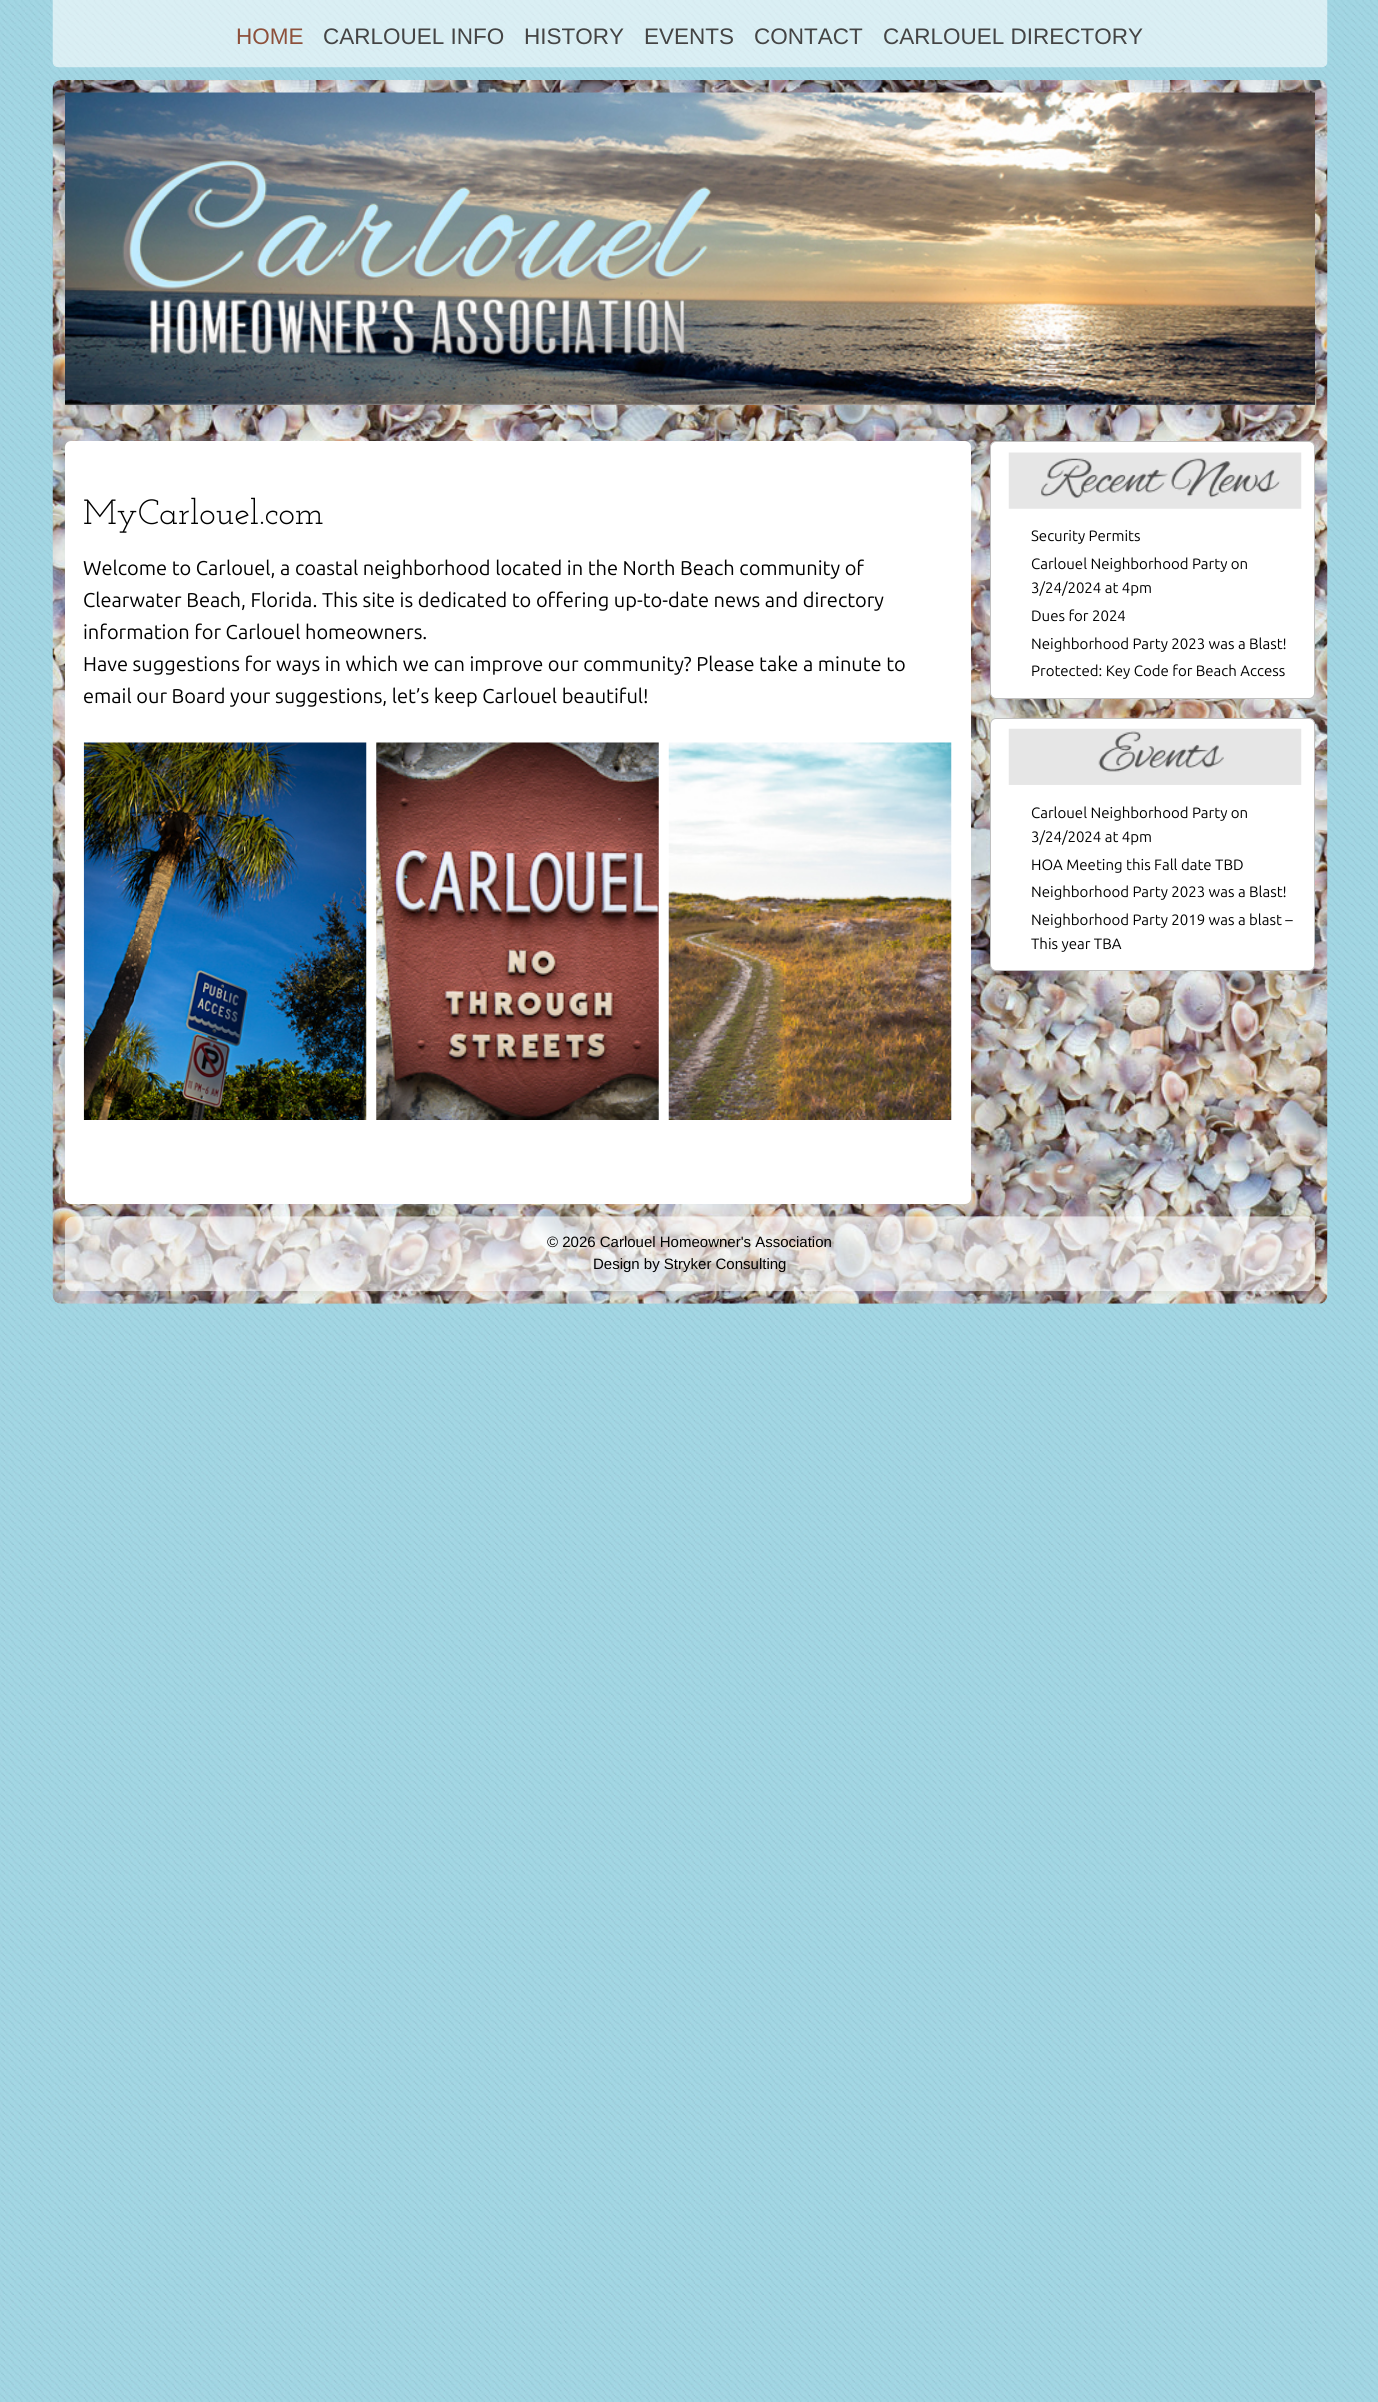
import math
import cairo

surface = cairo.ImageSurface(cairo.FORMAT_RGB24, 1378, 2402)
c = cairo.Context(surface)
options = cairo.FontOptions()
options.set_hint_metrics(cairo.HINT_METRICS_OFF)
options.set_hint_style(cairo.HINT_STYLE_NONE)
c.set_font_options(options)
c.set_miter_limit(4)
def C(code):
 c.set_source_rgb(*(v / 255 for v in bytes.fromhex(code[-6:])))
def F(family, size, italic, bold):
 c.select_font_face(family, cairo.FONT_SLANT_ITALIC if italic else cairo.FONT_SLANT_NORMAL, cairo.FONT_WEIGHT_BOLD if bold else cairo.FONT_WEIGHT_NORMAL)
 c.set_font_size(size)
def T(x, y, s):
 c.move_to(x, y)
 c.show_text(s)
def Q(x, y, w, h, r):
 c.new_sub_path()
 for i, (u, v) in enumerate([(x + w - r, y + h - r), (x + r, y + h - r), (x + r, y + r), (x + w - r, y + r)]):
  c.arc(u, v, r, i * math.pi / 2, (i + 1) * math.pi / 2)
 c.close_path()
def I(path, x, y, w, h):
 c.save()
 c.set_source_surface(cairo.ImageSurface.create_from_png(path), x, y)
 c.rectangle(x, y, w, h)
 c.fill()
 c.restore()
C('ffffff')
c.paint()
I('1.png',0,0,1378,2402)
I('2.png',52,0,1276,68)
F('Liberation Sans',22.5,0,0)
C('8d503b')
T(236,44,'HOME')
C('444444')
T(323,44,'CARLOUEL INFO')
T(524,44,'HISTORY')
T(644,44,'EVENTS')
T(754,44,'CONTACT')
T(883,44,'CARLOUEL DIRECTORY')
I('3.png',52,80,1276,1224)
I('4.png',65,92,1250,313)
C('ffffff')
Q(65,441,906,763,6)
c.fill()
F('Josefin Slab',35,0,0)
C('000000')
T(83,524,'MyCarlouel.com')
F('Ubuntu',20,0,0)
T(83,575,'Welcome to Carlouel, a coastal neighborhood located in the North Beach community of')
T(83,607,'Clearwater Beach, Florida. This site is dedicated to offering up-to-date news and directory')
T(83,639,'information for Carlouel homeowners.')
T(83,671,'Have suggestions for ways in which we can improve our community? Please take a minute to')
T(83,703,'email our Board your suggestions, let’s keep Carlouel beautiful!')
I('5.png',83,742,284,378)
I('6.png',376,742,283,378)
I('7.png',668,742,284,378)
C('ffffff')
Q(990.5,441.5,324,257,5.5)
c.fill_preserve()
C('c0c0c0')
c.set_line_width(1)
c.stroke()
I('8.png',1008,452,294,57)
F('Ubuntu',15,0,0)
C('000000')
T(1031,541,'Security Permits')
T(1031,569,'Carlouel Neighborhood Party on')
T(1031,593,'3/24/2024 at 4pm')
T(1031,621,'Dues for 2024')
T(1031,649,'Neighborhood Party 2023 was a Blast!')
T(1031,676,'Protected: Key Code for Beach Access')
C('ffffff')
Q(990.5,718.5,324,252,5.5)
c.fill_preserve()
C('c0c0c0')
c.stroke()
I('9.png',1008,728,294,57)
C('000000')
T(1031,818,'Carlouel Neighborhood Party on')
T(1031,842,'3/24/2024 at 4pm')
T(1031,870,'HOA Meeting this Fall date TBD')
T(1031,897,'Neighborhood Party 2023 was a Blast!')
T(1031,925,'Neighborhood Party 2019 was a blast –')
T(1031,949,'This year TBA')
I('10.png',65,1216,1250,76)
F('Liberation Sans',15,0,0)
T(547,1247,'© 2026 Carlouel Homeowner\'s Association')
T(593,1269,'Design by Stryker Consulting')
surface.write_to_png('o.png')
